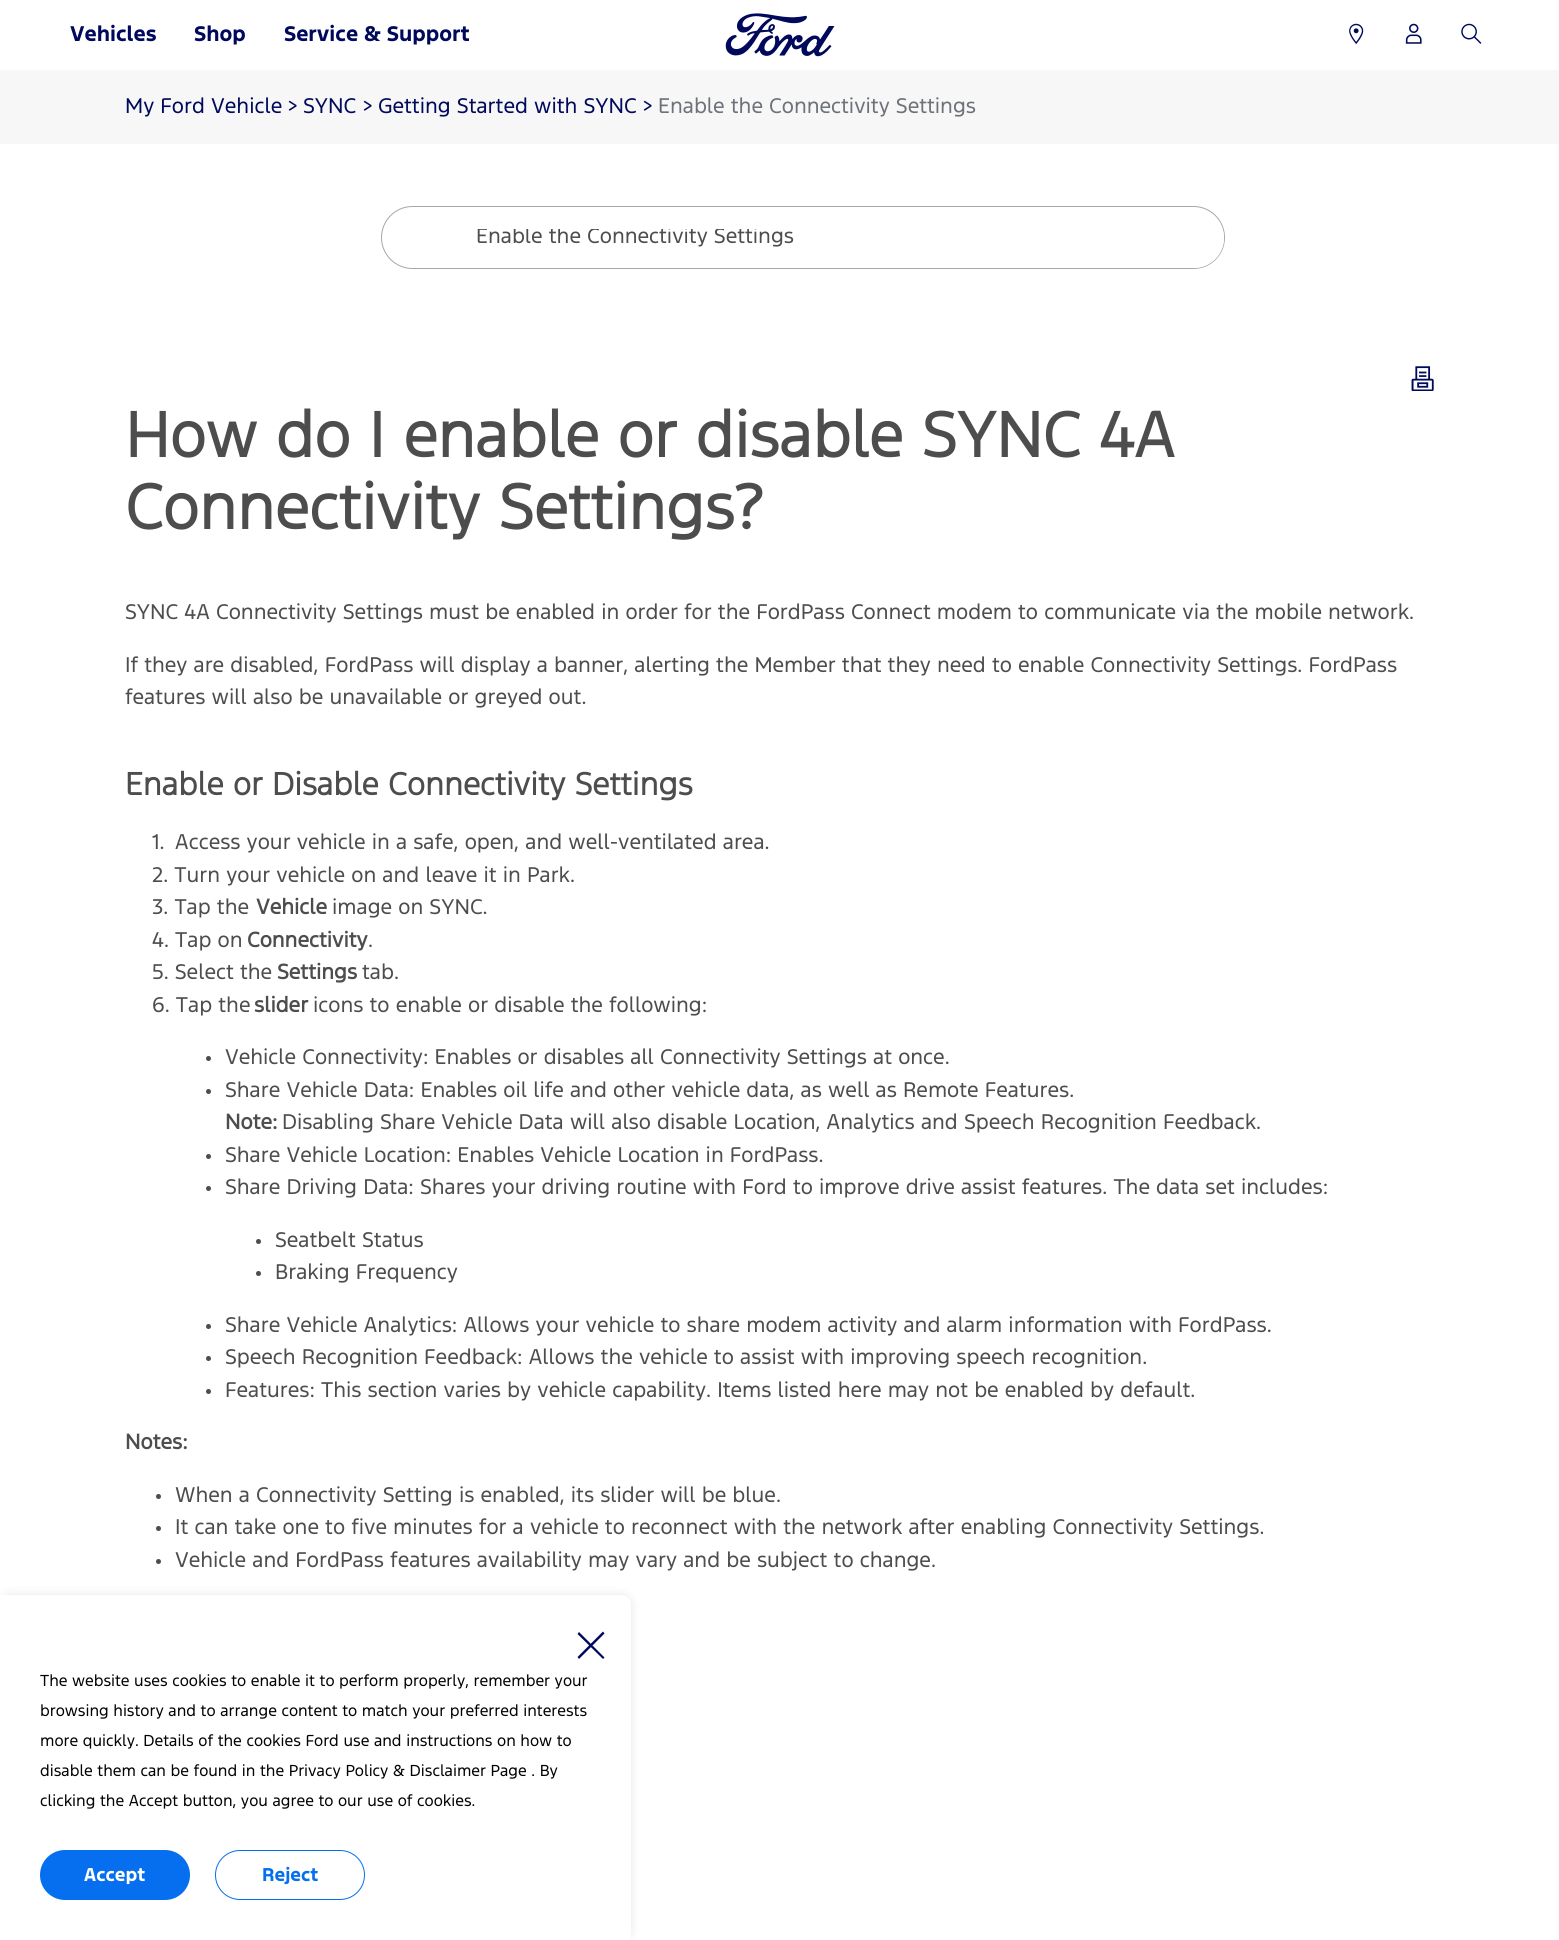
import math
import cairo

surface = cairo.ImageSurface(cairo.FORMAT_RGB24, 1559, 1940)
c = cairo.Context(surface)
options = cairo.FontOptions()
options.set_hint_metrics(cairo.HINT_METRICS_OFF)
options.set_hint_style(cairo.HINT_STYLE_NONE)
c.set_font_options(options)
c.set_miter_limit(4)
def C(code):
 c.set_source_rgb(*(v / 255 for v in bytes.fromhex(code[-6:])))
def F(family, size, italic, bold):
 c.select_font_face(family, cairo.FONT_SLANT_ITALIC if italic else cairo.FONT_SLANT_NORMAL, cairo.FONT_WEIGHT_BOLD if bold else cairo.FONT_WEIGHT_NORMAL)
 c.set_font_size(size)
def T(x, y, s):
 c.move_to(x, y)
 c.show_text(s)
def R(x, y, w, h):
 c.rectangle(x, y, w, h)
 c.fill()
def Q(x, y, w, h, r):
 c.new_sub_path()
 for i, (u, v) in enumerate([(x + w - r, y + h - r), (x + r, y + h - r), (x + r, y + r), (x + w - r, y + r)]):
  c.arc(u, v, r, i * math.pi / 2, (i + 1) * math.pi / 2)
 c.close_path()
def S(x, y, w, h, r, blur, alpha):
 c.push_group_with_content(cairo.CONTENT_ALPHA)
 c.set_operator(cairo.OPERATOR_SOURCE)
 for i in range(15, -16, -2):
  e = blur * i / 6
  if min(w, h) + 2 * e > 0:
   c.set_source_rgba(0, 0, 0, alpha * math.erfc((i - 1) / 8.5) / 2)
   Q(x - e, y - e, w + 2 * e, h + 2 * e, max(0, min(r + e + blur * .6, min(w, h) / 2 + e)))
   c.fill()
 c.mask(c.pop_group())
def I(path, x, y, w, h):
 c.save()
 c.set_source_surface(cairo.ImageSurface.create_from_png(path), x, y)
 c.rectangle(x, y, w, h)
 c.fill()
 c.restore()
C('ffffff')
c.paint()
F('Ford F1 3',20,0,1)
C('00095b')
T(70,41,'Vehicles')
T(194,41,'Shop')
T(284,41,'Service & Support')
I('1.png',725,13,110,44)
I('2.png',1349,23,15,21)
I('3.png',1405,23,17,21)
I('4.png',1461,23,21,21)
C('000000')
S(0,1595,631,345,10,5,.1)
C('ffffff')
c.new_path()
c.move_to(0,1595)
c.line_to(621,1595)
c.curve_to(626.5,1595,631,1599.5,631,1605)
c.line_to(631,1940)
c.line_to(0,1940)
c.close_path()
c.fill()
C('00095b')
c.new_path()
c.move_to(577.5,1634)
c.line_to(603,1659)
c.line_to(604.5,1657.5)
c.line_to(579,1632)
c.close_path()
c.move_to(579,1659)
c.line_to(604.5,1633.5)
c.line_to(603,1631.5)
c.line_to(577.5,1657)
c.close_path()
c.fill()
F('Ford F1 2',15,0,0)
C('010203')
T(40,1686,'The website uses cookies to enable it to perform properly, remember your')
T(40,1716,'browsing history and to arrange content to match your preferred interests')
T(40,1746,'more quickly. Details of the cookies Ford use and instructions on how to')
T(40,1776,'disable them can be found in the Privacy Policy & Disclaimer Page . By')
T(40,1806,'clicking the Accept button, you agree to our use of cookies.')
C('066fef')
Q(40,1850,150,50,25)
c.fill()
F('Ford F1 3',17.5,0,1)
C('ffffff')
T(84,1881,'Accept')
Q(215.5,1850.5,149,49,24.5)
C('066fef')
c.set_line_width(1)
c.stroke()
T(262,1881,'Reject')
C('f7f7f7')
R(0,70,1559,74)
F('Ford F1',20,0,0)
C('00095b')
T(125,113,'My Ford Vehicle')
T(287,113,'>')
T(303,113,'SYNC')
T(362,113,'>')
T(378,113,'Getting Started with SYNC')
T(642,113,'>')
C('6d7278')
T(658,113,'Enable the Connectivity Settings')
Q(381.5,206.5,843,62,31)
C('a7a7a7')
c.stroke()
C('ffffff')
Q(458,208,766,60,30)
c.fill()
c.save()
c.rectangle(476,229,729,19)
c.clip()
C('4d4d4d')
T(476,243,'Enable the Connectivity Settings')
c.restore()
I('5.png',1411,366,23,25)
F('Ford F1',60,0,1)
C('4d4d4d')
T(125,457,'How do I enable or disable SYNC 4A')
T(125,529,'Connectivity Settings?')
F('Ford F1',20,0,0)
T(125,619,'SYNC 4A Connectivity Settings must be enabled in order for the FordPass Connect modem to communicate via the mobile network.')
T(125,672,'If they are disabled, FordPass will display a banner, alerting the Member that they need to enable Connectivity Settings. FordPass')
T(125,704,'features will also be unavailable or greyed out.')
F('Ford F1',30,0,1)
T(125,795,'Enable or Disable Connectivity Settings')
F('Ford F1',20,0,0)
T(152,849,'1.')
T(175,849,'Access your vehicle in a safe, open, and well-ventilated area.')
T(152,882,'2. Turn your vehicle on and leave it in Park.')
T(152,914,'3. Tap the')
F('Ford F1 2',20,0,1)
T(256,914,'Vehicle')
F('Ford F1',20,0,0)
T(332,914,'image on SYNC.')
T(152,947,'4. Tap on')
F('Ford F1 2',20,0,1)
T(247,947,'Connectivity')
F('Ford F1',20,0,0)
T(368,947,'.')
T(152,979,'5. Select the')
F('Ford F1 2',20,0,1)
T(277,979,'Settings')
F('Ford F1',20,0,0)
T(362,979,'tab.')
T(152,1012,'6. Tap the')
F('Ford F1 2',20,0,1)
T(254,1012,'slider')
F('Ford F1',20,0,0)
T(313,1012,'icons to enable or disable the following:')
c.new_path()
c.arc(208.5,1058.5,2.5,0,2 * math.pi)
c.fill()
T(225,1064,'Vehicle Connectivity: Enables or disables all Connectivity Settings at once.')
c.new_path()
c.arc(208.5,1091.5,2.5,0,2 * math.pi)
c.fill()
T(225,1097,'Share Vehicle Data: Enables oil life and other vehicle data, as well as Remote Features.')
F('Ford F1 2',20,0,1)
T(225,1129,'Note:')
F('Ford F1',20,0,0)
T(282,1129,'Disabling Share Vehicle Data will also disable Location, Analytics and Speech Recognition Feedback.')
c.new_path()
c.arc(208.5,1156.5,2.5,0,2 * math.pi)
c.fill()
T(225,1162,'Share Vehicle Location: Enables Vehicle Location in FordPass.')
c.new_path()
c.arc(208.5,1188.5,2.5,0,2 * math.pi)
c.fill()
T(225,1194,'Share Driving Data: Shares your driving routine with Ford to improve drive assist features. The data set includes:')
c.new_path()
c.arc(258.5,1241.5,2.5,0,2 * math.pi)
c.fill()
T(275,1247,'Seatbelt Status')
c.new_path()
c.arc(258.5,1273.5,2.5,0,2 * math.pi)
c.fill()
T(275,1279,'Braking Frequency')
c.new_path()
c.arc(208.5,1326.5,2.5,0,2 * math.pi)
c.fill()
T(225,1332,'Share Vehicle Analytics: Allows your vehicle to share modem activity and alarm information with FordPass.')
c.new_path()
c.arc(208.5,1358.5,2.5,0,2 * math.pi)
c.fill()
T(225,1364,'Speech Recognition Feedback: Allows the vehicle to assist with improving speech recognition.')
c.new_path()
c.arc(208.5,1391.5,2.5,0,2 * math.pi)
c.fill()
T(225,1397,'Features: This section varies by vehicle capability. Items listed here may not be enabled by default.')
F('Ford F1 2',20,0,1)
T(125,1449,'Notes:')
c.new_path()
c.arc(158.5,1496.5,2.5,0,2 * math.pi)
c.fill()
F('Ford F1',20,0,0)
T(175,1502,'When a Connectivity Setting is enabled, its slider will be blue.')
c.new_path()
c.arc(158.5,1528.5,2.5,0,2 * math.pi)
c.fill()
T(175,1534,'It can take one to five minutes for a vehicle to reconnect with the network after enabling Connectivity Settings.')
c.new_path()
c.arc(158.5,1561.5,2.5,0,2 * math.pi)
c.fill()
T(175,1567,'Vehicle and FordPass features availability may vary and be subject to change.')
surface.write_to_png('o.png')
